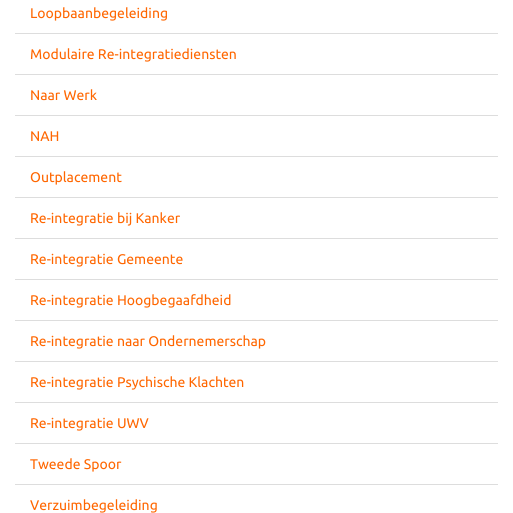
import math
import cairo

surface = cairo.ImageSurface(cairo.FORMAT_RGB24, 513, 513)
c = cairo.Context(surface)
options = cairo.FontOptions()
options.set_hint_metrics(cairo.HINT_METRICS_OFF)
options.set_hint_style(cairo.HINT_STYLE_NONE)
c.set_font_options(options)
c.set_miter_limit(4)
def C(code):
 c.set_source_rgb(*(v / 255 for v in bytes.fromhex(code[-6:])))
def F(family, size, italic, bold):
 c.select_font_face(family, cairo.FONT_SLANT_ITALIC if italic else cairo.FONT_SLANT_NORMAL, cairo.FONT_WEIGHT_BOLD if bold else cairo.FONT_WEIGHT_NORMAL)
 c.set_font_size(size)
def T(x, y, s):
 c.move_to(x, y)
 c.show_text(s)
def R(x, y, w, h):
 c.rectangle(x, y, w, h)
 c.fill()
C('ffffff')
c.paint()
C('dddddd')
R(15,33,483,1)
F('Ubuntu',14,0,0)
C('ff6600')
T(30,18,'Loopbaanbegeleiding')
C('dddddd')
R(15,74,483,1)
C('ff6600')
T(30,59,'Modulaire Re-integratiediensten')
C('dddddd')
R(15,115,483,1)
C('ff6600')
T(30,100,'Naar Werk')
C('dddddd')
R(15,156,483,1)
C('ff6600')
T(30,141,'NAH')
C('dddddd')
R(15,197,483,1)
C('ff6600')
T(30,182,'Outplacement')
C('dddddd')
R(15,238,483,1)
C('ff6600')
T(30,223,'Re-integratie bij Kanker')
C('dddddd')
R(15,279,483,1)
C('ff6600')
T(30,264,'Re-integratie Gemeente')
C('dddddd')
R(15,320,483,1)
C('ff6600')
T(30,305,'Re-integratie Hoogbegaafdheid')
C('dddddd')
R(15,361,483,1)
C('ff6600')
T(30,346,'Re-integratie naar Ondernemerschap')
C('dddddd')
R(15,402,483,1)
C('ff6600')
T(30,387,'Re-integratie Psychische Klachten')
C('dddddd')
R(15,443,483,1)
C('ff6600')
T(30,428,'Re-integratie UWV')
C('dddddd')
R(15,484,483,1)
C('ff6600')
T(30,469,'Tweede Spoor')
T(30,510,'Verzuimbegeleiding')
surface.write_to_png('o.png')
